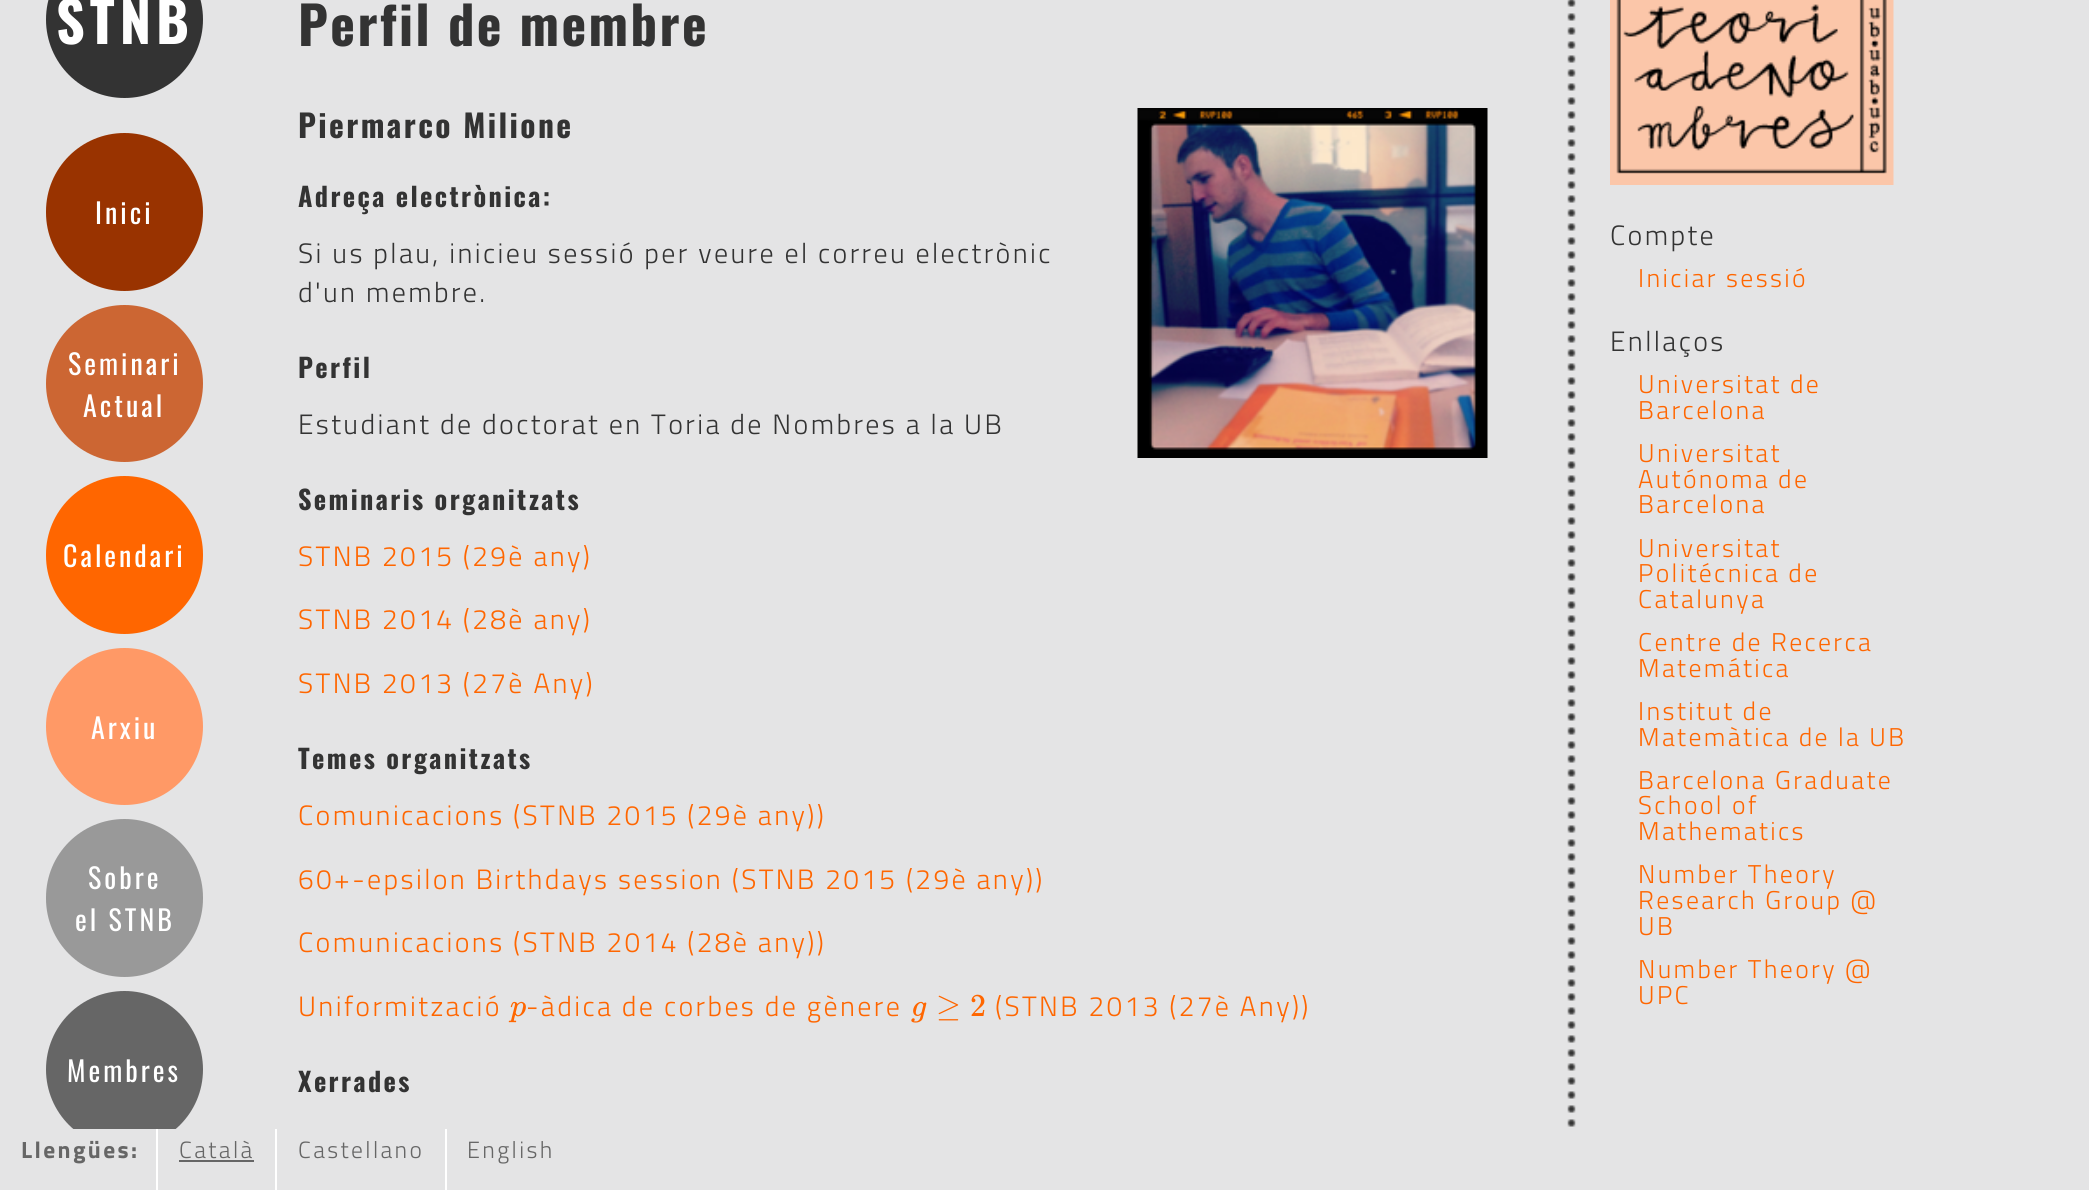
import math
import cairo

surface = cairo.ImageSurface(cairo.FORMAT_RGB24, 2089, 1190)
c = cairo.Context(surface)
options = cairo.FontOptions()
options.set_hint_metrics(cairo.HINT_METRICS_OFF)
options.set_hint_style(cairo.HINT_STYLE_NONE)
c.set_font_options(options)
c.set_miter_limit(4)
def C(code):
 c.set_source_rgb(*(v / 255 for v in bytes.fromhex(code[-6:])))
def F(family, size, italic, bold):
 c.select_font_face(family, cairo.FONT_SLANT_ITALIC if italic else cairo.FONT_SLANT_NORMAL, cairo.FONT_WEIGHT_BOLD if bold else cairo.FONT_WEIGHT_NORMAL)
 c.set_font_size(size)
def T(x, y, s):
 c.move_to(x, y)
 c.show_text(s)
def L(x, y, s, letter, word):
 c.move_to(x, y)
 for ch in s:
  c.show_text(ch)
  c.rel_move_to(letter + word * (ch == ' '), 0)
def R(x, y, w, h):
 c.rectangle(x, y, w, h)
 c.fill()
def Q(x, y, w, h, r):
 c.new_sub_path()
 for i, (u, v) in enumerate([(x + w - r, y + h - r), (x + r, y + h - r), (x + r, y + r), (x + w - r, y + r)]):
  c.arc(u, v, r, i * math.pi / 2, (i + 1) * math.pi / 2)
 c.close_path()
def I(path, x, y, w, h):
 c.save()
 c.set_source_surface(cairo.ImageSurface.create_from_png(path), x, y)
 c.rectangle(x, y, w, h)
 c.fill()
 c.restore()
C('e4e4e5')
c.paint()
I('1.png',1567,0,9,1127)
C('333333')
c.arc(124.5,19.5,78.5,0,2 * math.pi)
c.fill()
F('Oswald',56,0,1)
C('ffffff')
L(56,44,'STNB',5,0)
C('993300')
Q(46,133,157,158,78.5)
c.fill()
F('Oswald',28,0,0)
C('ffffff')
L(95,224,'Inici',3,0)
C('cc6633')
c.new_path()
c.arc(124.5,383.5,78.5,0,2 * math.pi)
c.fill()
C('ffffff')
L(68,375,'Seminari',3,0)
L(83,417,'Actual',3,0)
C('ff6600')
Q(46,476,157,158,78.5)
c.fill()
C('ffffff')
L(63,567,'Calendari',3,0)
C('ff9966')
c.new_path()
c.arc(124.5,726.5,78.5,0,2 * math.pi)
c.fill()
C('ffffff')
L(91,739,'Arxiu',3,0)
C('999999')
Q(46,819,157,158,78.5)
c.fill()
C('ffffff')
L(88,889,'Sobre',3,0)
L(75,931,'el STNB',3,0)
C('666666')
c.new_path()
c.arc(124.5,1069.5,78.5,0,2 * math.pi)
c.fill()
C('ffffff')
L(67,1082,'Membres',3,0)
F('Oswald',52.5,0,1)
C('333333')
L(298,46,'Perfil de membre',2.38,0)
F('Oswald',31.5,0,1)
L(298,138,'Piermarco Milione',2.38,0)
I('2.png',1137,108,351,350)
F('Oswald',26.25,0,1)
L(298,207,'Adreça electrònica:',2.38,0)
F('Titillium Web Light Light',28,0,0)
L(298,263,'Si us plau, inicieu sessió per veure el correu electrònic',2.38,0)
L(298,302,'d\'un membre.',2.38,0)
F('Oswald',26.25,0,1)
L(298,378,'Perfil',2.38,0)
F('Titillium Web Light Light',28,0,0)
L(298,434,'Estudiant de doctorat en Toria de Nombres a la UB',2.38,0)
F('Oswald',26.25,0,1)
L(298,510,'Seminaris organitzats',2.38,0)
F('Titillium Web Light Light',28,0,0)
C('ff6600')
L(298,566,'STNB 2015 (29è any)',2.38,0)
L(298,629,'STNB 2014 (28è any)',2.38,0)
L(298,693,'STNB 2013 (27è Any)',2.38,0)
F('Oswald',26.25,0,1)
C('333333')
L(298,769,'Temes organitzats',2.38,0)
F('Titillium Web Light Light',28,0,0)
C('ff6600')
L(298,825,'Comunicacions (STNB 2015 (29è any))',2.38,0)
L(298,889,'60+-epsilon Birthdays session (STNB 2015 (29è any))',2.38,0)
L(298,952,'Comunicacions (STNB 2014 (28è any))',2.38,0)
L(298,1016,'Uniformització',2.38,0)
F('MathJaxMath',32,1,0)
T(510,1016,'p')
F('Titillium Web Light Light',28,0,0)
L(526,1016,'-àdica de corbes de gènere',2.38,0)
F('MathJaxMath',32,1,0)
T(911,1016,'g')
F('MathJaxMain',32,0,0)
T(936,1016,'≥')
T(970,1016,'2')
F('Titillium Web Light Light',28,0,0)
L(995,1016,'(STNB 2013 (27è Any))',2.38,0)
F('Oswald',26.25,0,1)
C('333333')
L(298,1092,'Xerrades',2.38,0)
I('3.png',1610,0,284,185)
F('Titillium Web Light Light',28,0,0)
L(1610,245,'Compte',2.38,0)
F('Titillium Web Light Light',25.75,0,0)
C('ff6600')
L(1638,287,'Iniciar sessió',2.38,0)
F('Titillium Web Light Light',28,0,0)
C('333333')
L(1610,351,'Enllaços',2.38,0)
F('Titillium Web Light Light',25.75,0,0)
C('ff6600')
L(1638,393,'Universitat de',2.38,0)
L(1638,419,'Barcelona',2.38,0)
L(1638,462,'Universitat',2.38,0)
L(1638,488,'Autónoma de',2.38,0)
L(1638,513,'Barcelona',2.38,0)
L(1638,557,'Universitat',2.38,0)
L(1638,582,'Politécnica de',2.38,0)
L(1638,608,'Catalunya',2.38,0)
L(1638,651,'Centre de Recerca',2.38,0)
L(1638,677,'Matemática',2.38,0)
L(1638,720,'Institut de',2.38,0)
L(1638,746,'Matemàtica de la UB',2.38,0)
L(1638,789,'Barcelona Graduate',2.38,0)
L(1638,814,'School of',2.38,0)
L(1638,840,'Mathematics',2.38,0)
L(1638,883,'Number Theory',2.38,0)
L(1638,909,'Research Group @',2.38,0)
L(1638,935,'UB',2.38,0)
L(1638,978,'Number Theory @',2.38,0)
L(1638,1004,'UPC',2.38,0)
C('e4e4e5')
R(73,1129,103,19)
F('Titillium Web',23.5,0,1)
C('666666')
L(21,1158,'Llengües:',2.38,0)
C('ffffff')
R(156,1129,2,61)
F('Titillium Web Light Light',23.5,0,0)
C('666666')
L(179,1158,'Català',2.38,0)
R(179,1160,75,2)
C('ffffff')
R(275,1129,2,61)
C('666666')
L(298,1158,'Castellano',2.38,0)
C('ffffff')
R(445,1129,2,61)
C('666666')
L(467,1158,'English',2.38,0)
surface.write_to_png('o.png')
